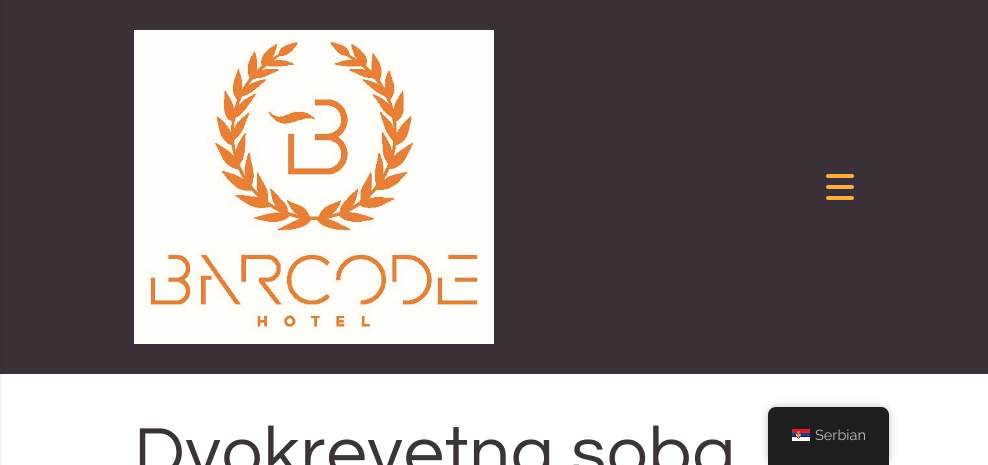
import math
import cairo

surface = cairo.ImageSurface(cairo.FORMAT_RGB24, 988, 465)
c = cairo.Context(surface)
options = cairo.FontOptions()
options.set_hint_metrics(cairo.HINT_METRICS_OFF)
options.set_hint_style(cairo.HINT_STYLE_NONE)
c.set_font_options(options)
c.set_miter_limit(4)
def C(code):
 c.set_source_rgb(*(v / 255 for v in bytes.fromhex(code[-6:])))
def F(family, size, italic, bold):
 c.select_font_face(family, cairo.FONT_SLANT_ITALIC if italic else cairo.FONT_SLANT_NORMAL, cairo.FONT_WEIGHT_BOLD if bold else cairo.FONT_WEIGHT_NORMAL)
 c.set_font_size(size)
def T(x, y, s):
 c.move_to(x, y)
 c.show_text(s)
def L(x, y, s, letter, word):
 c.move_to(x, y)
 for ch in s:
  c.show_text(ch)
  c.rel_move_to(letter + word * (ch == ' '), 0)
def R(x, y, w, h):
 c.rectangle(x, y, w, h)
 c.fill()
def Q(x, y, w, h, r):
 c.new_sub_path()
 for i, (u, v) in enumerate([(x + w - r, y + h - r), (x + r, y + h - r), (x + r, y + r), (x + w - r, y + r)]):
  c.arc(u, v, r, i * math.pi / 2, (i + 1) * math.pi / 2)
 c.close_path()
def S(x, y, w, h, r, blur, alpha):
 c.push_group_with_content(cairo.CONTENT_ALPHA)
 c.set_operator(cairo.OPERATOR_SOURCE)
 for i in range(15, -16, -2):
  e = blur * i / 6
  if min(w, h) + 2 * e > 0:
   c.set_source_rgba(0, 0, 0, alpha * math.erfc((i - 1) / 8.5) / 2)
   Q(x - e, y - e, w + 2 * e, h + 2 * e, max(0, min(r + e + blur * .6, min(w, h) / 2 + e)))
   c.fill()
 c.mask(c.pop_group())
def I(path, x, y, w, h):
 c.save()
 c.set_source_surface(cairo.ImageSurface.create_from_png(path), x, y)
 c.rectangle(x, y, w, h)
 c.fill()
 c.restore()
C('ffffff')
c.paint()
C('3a3138')
R(0,0,988,374)
I('1.png',134,30,360,314)
C('ffac41')
Q(826,174,28,4,2)
c.fill()
Q(826,185,28,4,2)
c.fill()
Q(826,196,28,4,2)
c.fill()
C('000000')
S(-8,3,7,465,0,2.5,.2)
F('Questrial',72,0,0)
C('3a3534')
L(134,476,'Dvokrevetna soba',1,0)
C('000000')
S(768,407,121,58,8,4,.25)
C('1e1e1e')
c.new_path()
c.move_to(776,407)
c.line_to(881,407)
c.curve_to(885.5,407,889,410.5,889,415)
c.line_to(889,465)
c.line_to(768,465)
c.line_to(768,415)
c.curve_to(768,410.5,771.5,407,776,407)
c.close_path()
c.fill()
I('2.png',792,429,18,12)
F('Raleway',14.5,0,0)
C('bdbdbd')
T(815,440,'Serbian')
surface.write_to_png('o.png')
